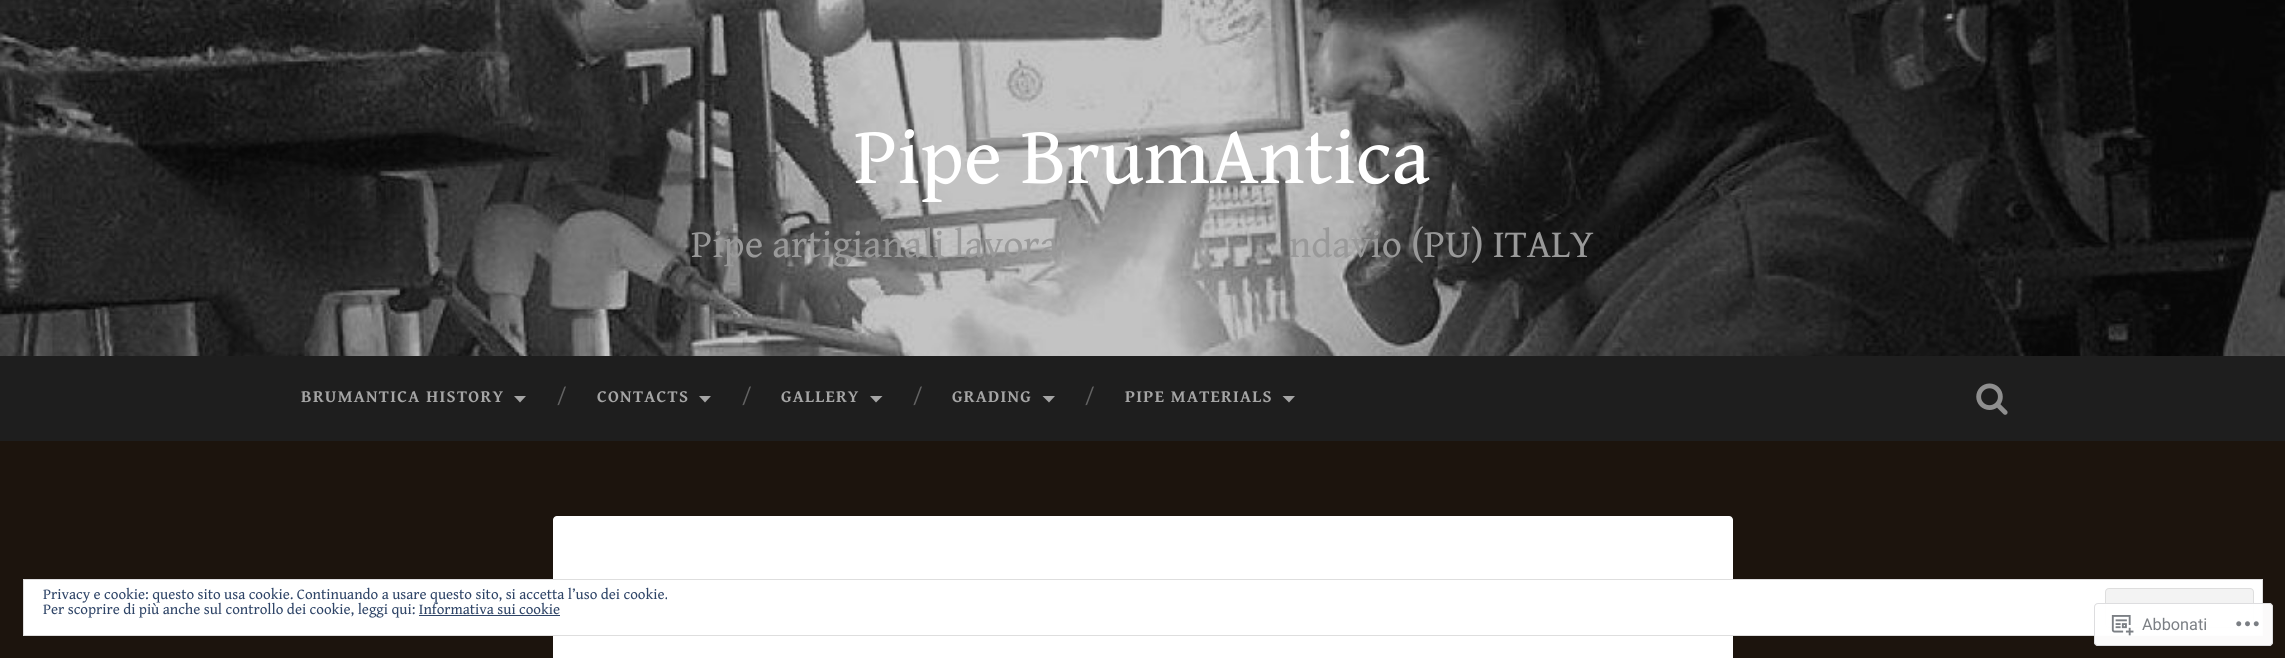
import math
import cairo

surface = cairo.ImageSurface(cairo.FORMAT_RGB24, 2285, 658)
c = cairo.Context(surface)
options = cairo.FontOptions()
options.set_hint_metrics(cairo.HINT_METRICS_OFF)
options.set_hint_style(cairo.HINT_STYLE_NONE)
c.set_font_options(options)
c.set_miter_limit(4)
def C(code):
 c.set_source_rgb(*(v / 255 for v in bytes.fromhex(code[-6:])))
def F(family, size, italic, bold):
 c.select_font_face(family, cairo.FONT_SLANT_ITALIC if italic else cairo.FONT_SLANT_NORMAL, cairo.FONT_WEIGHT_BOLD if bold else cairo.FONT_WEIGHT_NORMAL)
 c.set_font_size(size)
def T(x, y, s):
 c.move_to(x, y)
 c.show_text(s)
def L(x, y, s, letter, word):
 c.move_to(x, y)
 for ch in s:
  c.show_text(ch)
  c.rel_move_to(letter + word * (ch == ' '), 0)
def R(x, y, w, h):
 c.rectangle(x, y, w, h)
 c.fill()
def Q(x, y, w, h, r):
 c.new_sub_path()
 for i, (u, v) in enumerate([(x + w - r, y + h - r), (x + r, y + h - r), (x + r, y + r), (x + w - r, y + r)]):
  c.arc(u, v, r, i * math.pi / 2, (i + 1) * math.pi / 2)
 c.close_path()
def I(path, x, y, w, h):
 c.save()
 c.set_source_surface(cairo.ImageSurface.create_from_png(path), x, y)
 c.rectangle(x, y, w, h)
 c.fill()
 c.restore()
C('1c140d')
c.paint()
I('1.png',0,0,2285,356)
F('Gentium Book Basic',81,0,0)
C('ffffff')
T(854,183,'Pipe BrumAntica')
F('Gentium Book Basic',39.5,0,0)
C('999999')
T(691,257,'Pipe artigianali lavora')
T(1289,257,'ndavio (PU) ITALY')
C('1e1e1e')
R(0,356,2285,85)
F('Gentium Book Basic',17.25,0,1)
C('a5a5a5')
L(301,402,'BRUMANTICA HISTORY',1.25,0)
c.new_path()
c.move_to(514,396)
c.line_to(526,396)
c.line_to(520,402.5)
c.close_path()
c.fill()
F('Gentium Book Basic',20,0,0)
C('626262')
T(557,402,'/')
F('Gentium Book Basic',17.25,0,1)
C('a5a5a5')
L(597,402,'CONTACTS',1.25,0)
c.new_path()
c.move_to(699,396)
c.line_to(711,396)
c.line_to(705,402.5)
c.close_path()
c.fill()
F('Gentium Book Basic',20,0,0)
C('626262')
T(742,402,'/')
F('Gentium Book Basic',17.25,0,1)
C('a5a5a5')
L(781,402,'GALLERY',1.25,0)
c.new_path()
c.move_to(870,396)
c.line_to(882.5,396)
c.line_to(876,402.5)
c.close_path()
c.fill()
F('Gentium Book Basic',20,0,0)
C('626262')
T(913,402,'/')
F('Gentium Book Basic',17.25,0,1)
C('a5a5a5')
L(952,402,'GRADING',1.25,0)
c.new_path()
c.move_to(1042.5,396)
c.line_to(1055,396)
c.line_to(1049,402.5)
c.close_path()
c.fill()
F('Gentium Book Basic',20,0,0)
C('626262')
T(1085,402,'/')
F('Gentium Book Basic',17.25,0,1)
C('a5a5a5')
L(1125,402,'PIPE MATERIALS',1.25,0)
c.new_path()
c.move_to(1282.5,396)
c.line_to(1295,396)
c.line_to(1289,402.5)
c.close_path()
c.fill()
I('2.png',1976,383,32,32)
C('ffffff')
Q(553,516,1180,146,4)
c.fill()
c.rectangle(23.5,579.5,2239,56)
c.fill_preserve()
C('dedede')
c.set_line_width(1)
c.stroke()
F('Gentium Book Basic',15,0,0)
C('2e4467')
T(43,599,'Privacy e cookie: questo sito usa cookie. Continuando a usare questo sito, si accetta l’uso dei cookie.')
C('f3f3f3')
Q(2105.5,588.5,148,39,3.5)
c.fill_preserve()
C('dedede')
c.stroke()
C('2e4467')
T(43,614,'Per scoprire di più anche sul controllo dei cookie, leggi qui: Informativa sui cookie')
R(419,615,141,1)
c.set_source_rgba(1,1,1,0.98)
Q(2094,603,179,43,4)
c.fill()
Q(2094.5,603.5,178,42,3.5)
c.set_source_rgba(0.863,0.863,0.871,0.98)
c.stroke()
I('3.png',2111,615,23,21)
F('Roboto',16.25,0,0)
C('7b7f84')
T(2142,630,'Abbonati')
I('4.png',2236,621,23,6)
surface.write_to_png('o.png')
